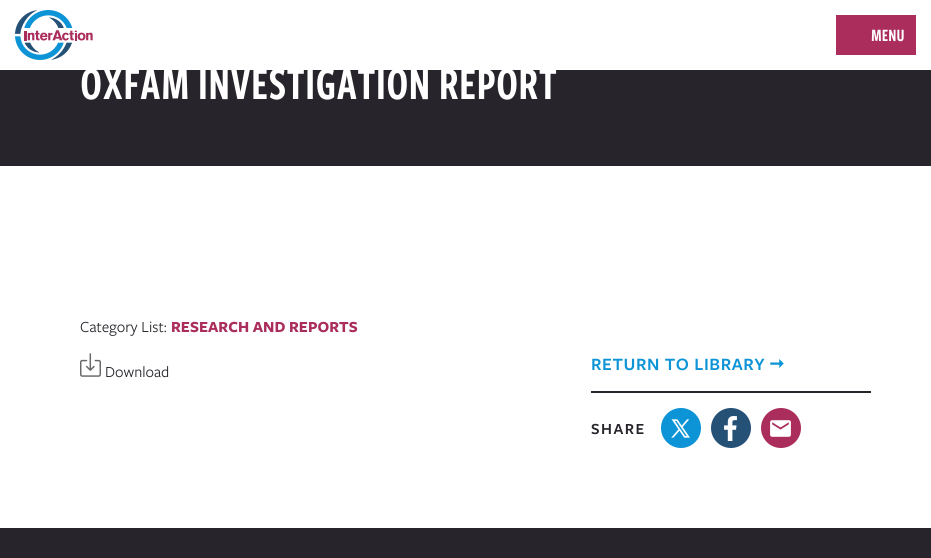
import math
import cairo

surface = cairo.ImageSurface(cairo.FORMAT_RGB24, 931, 558)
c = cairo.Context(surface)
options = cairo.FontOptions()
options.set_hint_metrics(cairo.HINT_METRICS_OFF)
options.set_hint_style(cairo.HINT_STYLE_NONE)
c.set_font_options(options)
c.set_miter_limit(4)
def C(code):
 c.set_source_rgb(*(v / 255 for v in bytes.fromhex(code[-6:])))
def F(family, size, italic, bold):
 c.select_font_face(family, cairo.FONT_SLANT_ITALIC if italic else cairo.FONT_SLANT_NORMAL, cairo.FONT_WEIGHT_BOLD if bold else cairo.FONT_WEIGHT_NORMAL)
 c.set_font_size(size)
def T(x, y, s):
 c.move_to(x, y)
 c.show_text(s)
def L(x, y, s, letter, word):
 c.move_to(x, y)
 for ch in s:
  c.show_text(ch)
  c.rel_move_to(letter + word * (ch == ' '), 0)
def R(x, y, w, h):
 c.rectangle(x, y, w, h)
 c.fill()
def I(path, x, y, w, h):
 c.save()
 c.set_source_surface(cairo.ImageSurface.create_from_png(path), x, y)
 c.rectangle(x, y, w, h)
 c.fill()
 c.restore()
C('ffffff')
c.paint()
I('1.png',15,10,78,50)
C('aa2d5c')
R(836,15,80,40)
F('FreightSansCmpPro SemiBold',18,0,0)
C('ffffff')
T(871,41,'MENU')
C('27242b')
R(0,70,931,96)
F('FreightSansCmpPro SemiBold',48,0,0)
C('ffffff')
L(80,99,'OXFAM INVESTIGATION REPORT',.2,0)
F('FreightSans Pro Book',16,0,0)
C('27242b')
T(80,332,'Category List:')
F('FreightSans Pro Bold',16,0,1)
C('aa2d5c')
T(171,332,'RESEARCH AND REPORTS')
I('2.png',80,353,21,24)
F('FreightSans Pro Book',16,0,0)
C('27242b')
T(105,377,'Download')
F('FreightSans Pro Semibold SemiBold',18,0,0)
C('0c94d6')
L(591,370,'RETURN TO LIBRARY',.6,0)
I('3.png',770,359,14,9)
C('27242b')
R(591,391,280,2)
F('FreightSans Pro Semibold SemiBold',16,0,0)
L(591,434,'SHARE',1.5,0)
C('0c94d6')
c.new_path()
c.arc(681,428,20,0,2 * math.pi)
c.fill()
I('4.png',671,419,19,19)
C('255177')
c.arc(731,428,20,0,2 * math.pi)
c.fill()
I('5.png',724,416,13,25)
C('aa2d5c')
c.arc(781,428,20,0,2 * math.pi)
c.fill()
I('6.png',770,420,21,17)
C('27242b')
R(0,528,931,30)
surface.write_to_png('o.png')
